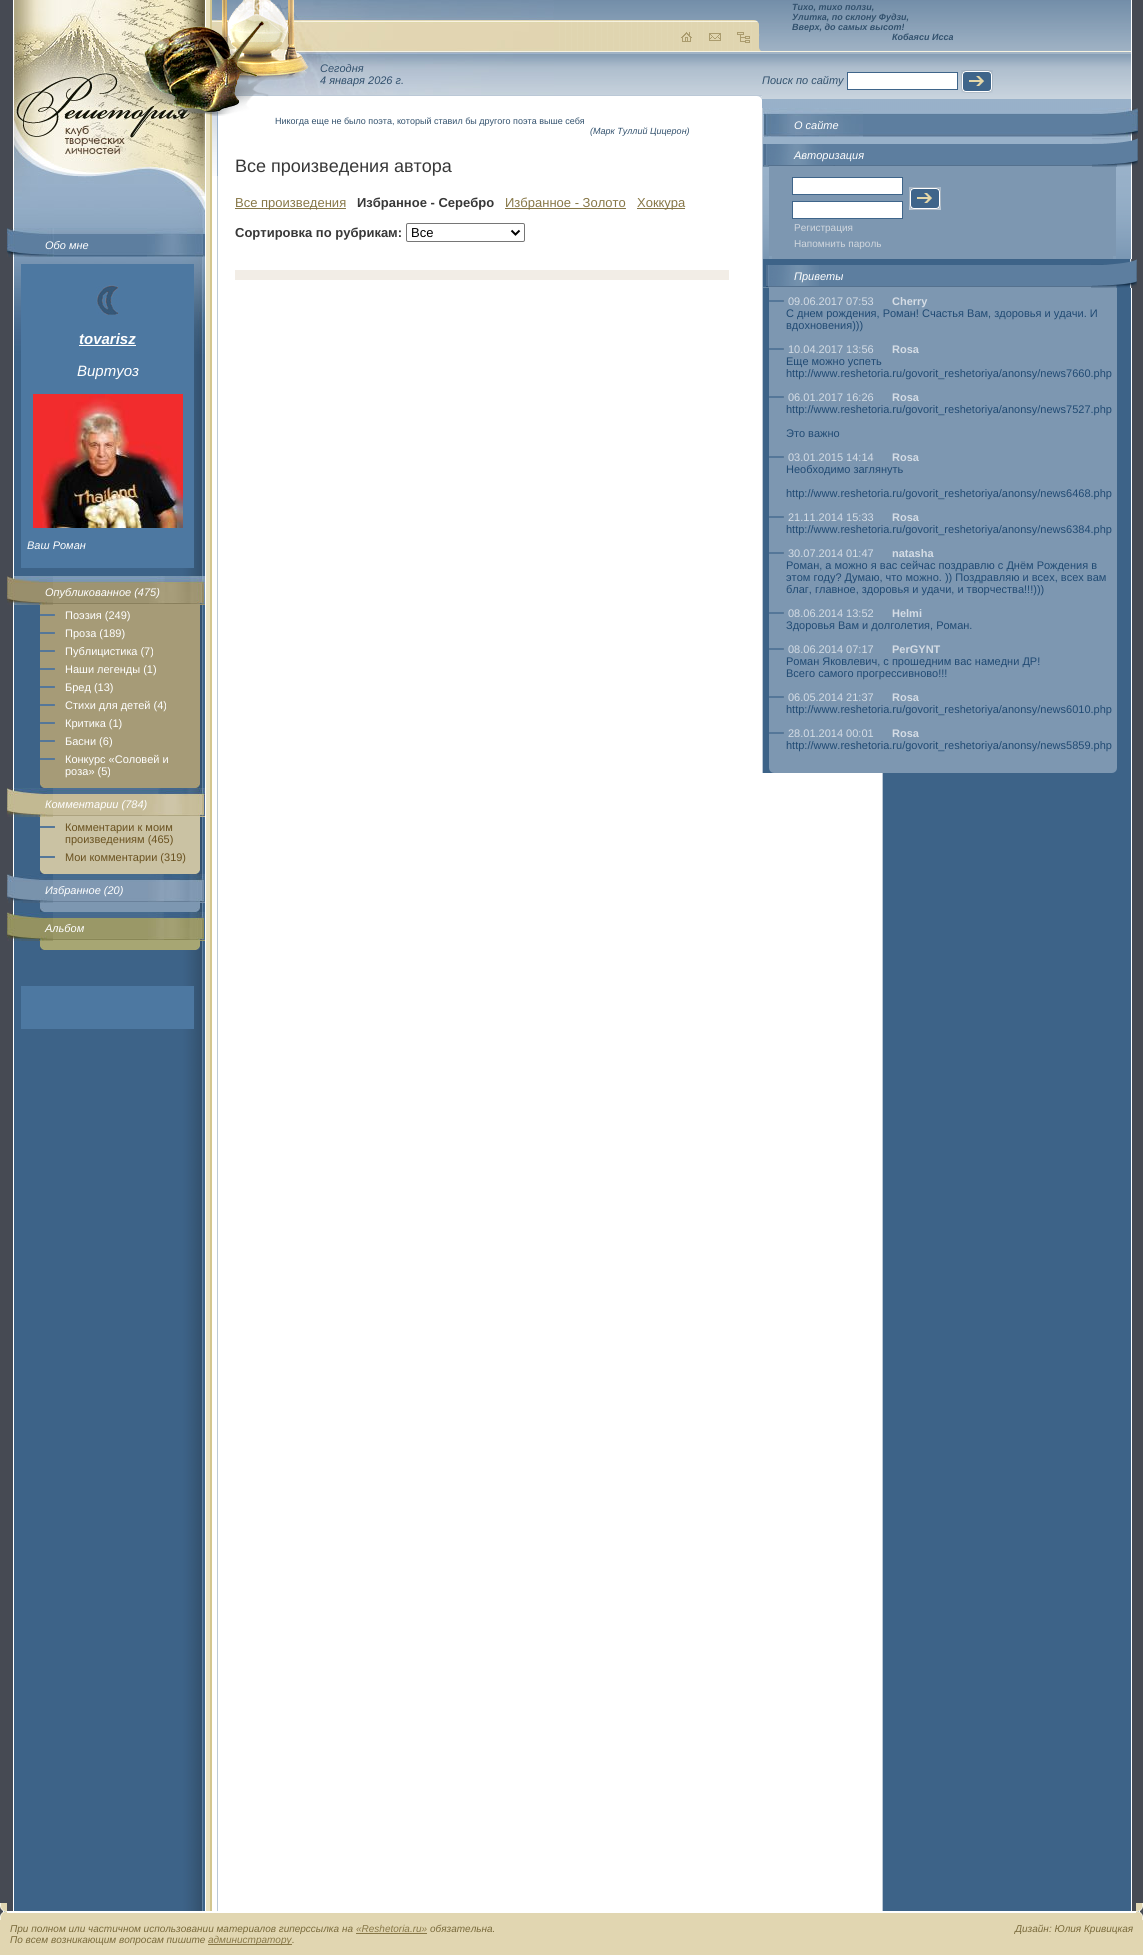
import math
import cairo

surface = cairo.ImageSurface(cairo.FORMAT_RGB24, 1143, 1955)
c = cairo.Context(surface)
options = cairo.FontOptions()
options.set_hint_metrics(cairo.HINT_METRICS_OFF)
options.set_hint_style(cairo.HINT_STYLE_NONE)
c.set_font_options(options)
c.set_miter_limit(4)
def C(code):
 c.set_source_rgb(*(v / 255 for v in bytes.fromhex(code[-6:])))
def F(family, size, italic, bold):
 c.select_font_face(family, cairo.FONT_SLANT_ITALIC if italic else cairo.FONT_SLANT_NORMAL, cairo.FONT_WEIGHT_BOLD if bold else cairo.FONT_WEIGHT_NORMAL)
 c.set_font_size(size)
def T(x, y, s):
 c.move_to(x, y)
 c.show_text(s)
def R(x, y, w, h):
 c.rectangle(x, y, w, h)
 c.fill()
def Q(x, y, w, h, r):
 c.new_sub_path()
 for i, (u, v) in enumerate([(x + w - r, y + h - r), (x + r, y + h - r), (x + r, y + r), (x + w - r, y + r)]):
  c.arc(u, v, r, i * math.pi / 2, (i + 1) * math.pi / 2)
 c.close_path()
def I(path, x, y, w, h):
 c.save()
 c.set_source_surface(cairo.ImageSurface.create_from_png(path), x, y)
 c.rectangle(x, y, w, h)
 c.fill()
 c.restore()
C('ffffff')
c.paint()
I('1.png',0,0,218,1911)
I('2.png',206,0,12,1847)
I('4.png',217,0,545,176)
I('5.png',212,0,5,176)
I('7.png',217,0,337,95)
C('ffffff')
R(218,96,544,80)
C('bbc8d6')
R(235,95,527,1)
I('28.png',14,0,191,354)
I('29.png',14,65,177,98)
I('3.png',140,0,169,116)
I('6.png',554,20,200,31)
I('8.png',754,20,8,31)
I('9.png',681,32,11,10)
I('10.png',709,33,12,8)
I('11.png',737,32,13,11)
F('Liberation Sans',11,1,0)
C('32516d')
T(320,72,'Сегодня')
T(320,84,'4 января 2026 г.')
I('12.png',757,96,5,4)
F('Liberation Sans',9,0,0)
T(275,124,'Никогда еще не было поэта, который ставил бы другого поэта выше себя')
F('Liberation Sans',9,1,0)
T(590,134,'(Марк Туллий Цицерон)')
F('Liberation Sans',18,0,0)
C('383838')
T(235,172,'Все произведения автора')
C('877747')
R(235,208,111,1)
F('Liberation Sans',13,0,0)
T(235,207,'Все произведения')
F('Liberation Sans',13,0,1)
C('383838')
T(357,207,'Избранное - Серебро')
C('877747')
R(505,208,121,1)
F('Liberation Sans',13,0,0)
T(505,207,'Избранное - Золото')
R(637,208,48,1)
T(637,207,'Хоккура')
F('Liberation Sans',13,0,1)
C('383838')
T(235,237,'Сортировка по рубрикам:')
Q(406.5,223.5,118,18,1.5)
C('767676')
c.set_line_width(1)
c.stroke()
c.new_path()
c.move_to(511.5,230.5)
c.line_to(515.5,234.5)
c.line_to(519.5,230.5)
C('000000')
c.set_line_width(2)
c.stroke()
F('Liberation Sans',13,0,0)
T(411,237,'Все')
C('f2ede6')
R(235,270,494,10)
I('13.png',882,0,261,1847)
I('14.png',762,0,369,259)
F('Liberation Sans',9,1,1)
C('32516d')
T(792,10,'Тихо, тихо ползи,')
T(792,20,'Улитка, по склону Фудзи,')
T(792,30,'Вверх, до самых высот!')
T(892,40,'Кобаяси Исса')
F('Liberation Sans',11,1,0)
T(762,84,'Поиск по сайту')
C('ffffff')
c.rectangle(847.5,72.5,110,17)
c.fill_preserve()
C('3f658a')
c.set_line_width(1)
c.stroke()
I('15.png',961,70,32,23)
I('16.png',863,113,229,24)
C('bbc8d6')
R(762,108,1,665)
I('17.png',763,108,100,29)
C('ffffff')
T(794,129,'О сайте')
I('18.png',1092,108,46,29)
I('19.png',763,144,329,23)
I('20.png',764,144,71,22)
T(794,159,'Авторизация')
C('7d97b1')
R(769,166,347,93)
I('21.png',1092,138,46,29)
C('829db7')
R(1113,256,3,3)
R(769,256,3,3)
C('ffffff')
c.rectangle(792.5,177.5,110,17)
c.fill_preserve()
C('3f658a')
c.stroke()
I('15.png',909,187,32,23)
C('ffffff')
c.rectangle(792.5,201.5,110,17)
c.fill_preserve()
C('3f658a')
c.stroke()
F('Liberation Sans',10,0,0)
C('d1d7de')
T(794,231,'Регистрация')
T(794,247,'Напомнить пароль')
C('3d6388')
R(763,259,120,514)
I('22.png',763,265,328,23)
I('23.png',763,265,56,22)
F('Liberation Sans',11,1,0)
C('ffffff')
T(794,280,'Приветы')
C('7d97b1')
R(769,287,348,486)
I('24.png',1091,259,46,29)
I('25.png',1112,768,5,5)
I('26.png',769,768,5,5)
I('27.png',769,300,15,2)
F('Liberation Sans',11,0,0)
C('d4dce5')
T(788,305,'09.06.2017 07:53')
F('Liberation Sans',11,0,1)
T(892,305,'Cherry')
F('Liberation Sans',11,0,0)
C('204a73')
T(786,317,'С днем рождения, Роман! Счастья Вам, здоровья и удачи. И')
T(786,329,'вдохновения)))')
I('27.png',769,348,15,2)
C('d4dce5')
T(788,353,'10.04.2017 13:56')
F('Liberation Sans',11,0,1)
T(892,353,'Rosa')
F('Liberation Sans',11,0,0)
C('204a73')
T(786,365,'Еще можно успеть')
T(786,377,'http://www.reshetoria.ru/govorit_reshetoriya/anonsy/news7660.php')
I('27.png',769,396,15,2)
C('d4dce5')
T(788,401,'06.01.2017 16:26')
F('Liberation Sans',11,0,1)
T(892,401,'Rosa')
F('Liberation Sans',11,0,0)
C('204a73')
T(786,413,'http://www.reshetoria.ru/govorit_reshetoriya/anonsy/news7527.php')
T(786,437,'Это важно')
I('27.png',769,456,15,2)
C('d4dce5')
T(788,461,'03.01.2015 14:14')
F('Liberation Sans',11,0,1)
T(892,461,'Rosa')
F('Liberation Sans',11,0,0)
C('204a73')
T(786,473,'Необходимо заглянуть')
T(786,497,'http://www.reshetoria.ru/govorit_reshetoriya/anonsy/news6468.php')
I('27.png',769,516,15,2)
C('d4dce5')
T(788,521,'21.11.2014 15:33')
F('Liberation Sans',11,0,1)
T(892,521,'Rosa')
F('Liberation Sans',11,0,0)
C('204a73')
T(786,533,'http://www.reshetoria.ru/govorit_reshetoriya/anonsy/news6384.php')
I('27.png',769,552,15,2)
C('d4dce5')
T(788,557,'30.07.2014 01:47')
F('Liberation Sans',11,0,1)
T(892,557,'natasha')
F('Liberation Sans',11,0,0)
C('204a73')
T(786,569,'Роман, а можно я вас сейчас поздравлю с Днём Рождения в')
T(786,581,'этом году? Думаю, что можно. )) Поздравляю и всех, всех вам')
T(786,593,'благ, главное, здоровья и удачи, и творчества!!!)))')
I('27.png',769,612,15,2)
C('d4dce5')
T(788,617,'08.06.2014 13:52')
F('Liberation Sans',11,0,1)
T(892,617,'Helmi')
F('Liberation Sans',11,0,0)
C('204a73')
T(786,629,'Здоровья Вам и долголетия, Роман.')
I('27.png',769,648,15,2)
C('d4dce5')
T(788,653,'08.06.2014 07:17')
F('Liberation Sans',11,0,1)
T(892,653,'PerGYNT')
F('Liberation Sans',11,0,0)
C('204a73')
T(786,665,'Роман Яковлевич, с прошедним вас намедни ДР!')
T(786,677,'Всего самого прогрессивново!!!')
I('27.png',769,696,15,2)
C('d4dce5')
T(788,701,'06.05.2014 21:37')
F('Liberation Sans',11,0,1)
T(892,701,'Rosa')
F('Liberation Sans',11,0,0)
C('204a73')
T(786,713,'http://www.reshetoria.ru/govorit_reshetoriya/anonsy/news6010.php')
I('27.png',769,732,15,2)
C('d4dce5')
T(788,737,'28.01.2014 00:01')
F('Liberation Sans',11,0,1)
T(892,737,'Rosa')
F('Liberation Sans',11,0,0)
C('204a73')
T(786,749,'http://www.reshetoria.ru/govorit_reshetoriya/anonsy/news5859.php')
I('30.png',54,228,93,29)
I('31.png',7,228,47,29)
I('32.png',147,228,58,29)
F('Liberation Sans',11,1,0)
C('ffffff')
T(45,249,'Обо мне')
C('4d78a1')
R(21,264,173,304)
I('33.png',96,285,23,30)
F('Liberation Sans',15,1,1)
C('ffffff')
T(79,344,'tovarisz')
R(79,345,57,1)
F('Liberation Sans',15,1,0)
T(77,376,'Виртуоз')
I('34.png',33,394,150,134)
F('Liberation Sans',11,1,0)
T(27,549,'Ваш Роман')
I('35.png',53,576,152,29)
C('a69b77')
R(40,604,160,184)
I('36.png',7,576,46,29)
I('37.png',149,576,56,28)
C('ffffff')
T(45,596,'Опубликованное (475)')
I('38.png',196,783,4,5)
I('39.png',40,783,4,5)
I('27.png',40,614,15,2)
F('Liberation Sans',11,0,0)
T(65,619,'Поэзия (249)')
I('27.png',40,632,15,2)
T(65,637,'Проза (189)')
I('27.png',40,650,15,2)
T(65,655,'Публицистика (7)')
I('27.png',40,668,15,2)
T(65,673,'Наши легенды (1)')
I('27.png',40,686,15,2)
T(65,691,'Бред (13)')
I('27.png',40,704,15,2)
T(65,709,'Стихи для детей (4)')
I('27.png',40,722,15,2)
T(65,727,'Критика (1)')
I('27.png',40,740,15,2)
T(65,745,'Басни (6)')
I('27.png',40,758,15,2)
T(65,763,'Конкурс «Соловей и')
T(65,775,'роза» (5)')
I('40.png',53,788,152,29)
C('cac2a3')
R(40,816,160,58)
I('41.png',7,788,46,29)
I('42.png',142,788,63,28)
F('Liberation Sans',11,1,0)
C('ffffff')
T(45,808,'Комментарии (784)')
I('43.png',196,870,4,4)
I('44.png',40,870,4,4)
I('27.png',40,826,15,2)
F('Liberation Sans',11,0,0)
C('69511f')
T(65,831,'Комментарии к моим')
T(65,843,'произведениям (465)')
I('27.png',40,856,15,2)
T(65,861,'Мои комментарии (319)')
I('45.png',53,874,152,29)
C('7d97b1')
R(40,902,160,10)
I('46.png',7,874,46,29)
I('47.png',148,874,57,28)
F('Liberation Sans',11,1,0)
C('ffffff')
T(45,894,'Избранное (20)')
I('48.png',196,908,4,4)
I('49.png',40,908,4,4)
I('50.png',53,912,152,29)
C('a7a673')
R(40,940,160,10)
I('51.png',7,912,46,29)
I('52.png',148,912,57,28)
C('ffffff')
T(45,932,'Альбом')
I('53.png',196,946,4,4)
I('54.png',40,946,4,4)
C('4d78a1')
R(21,986,173,43)
I('55.png',882,1847,261,64)
I('56.png',0,1903,7,8)
I('57.png',1136,1903,7,8)
C('e1d6b1')
R(0,1913,1143,42)
I('58.png',0,1911,7,9)
I('59.png',1136,1911,7,9)
F('Liberation Sans',10,1,0)
C('796a3b')
T(10,1932,'При полном или частичном использовании материалов гиперссылка на')
C('877747')
T(356,1932,'«Reshetoria.ru»')
R(356,1933,71,1)
C('796a3b')
T(430,1932,'обязательна.')
T(10,1943,'По всем возникающим вопросам пишите')
C('877747')
R(208,1944,84,1)
T(208,1943,'администратору')
C('796a3b')
T(292,1943,'.')
T(1015,1932,'Дизайн: Юлия Кривицкая')
surface.write_to_png('o.png')
